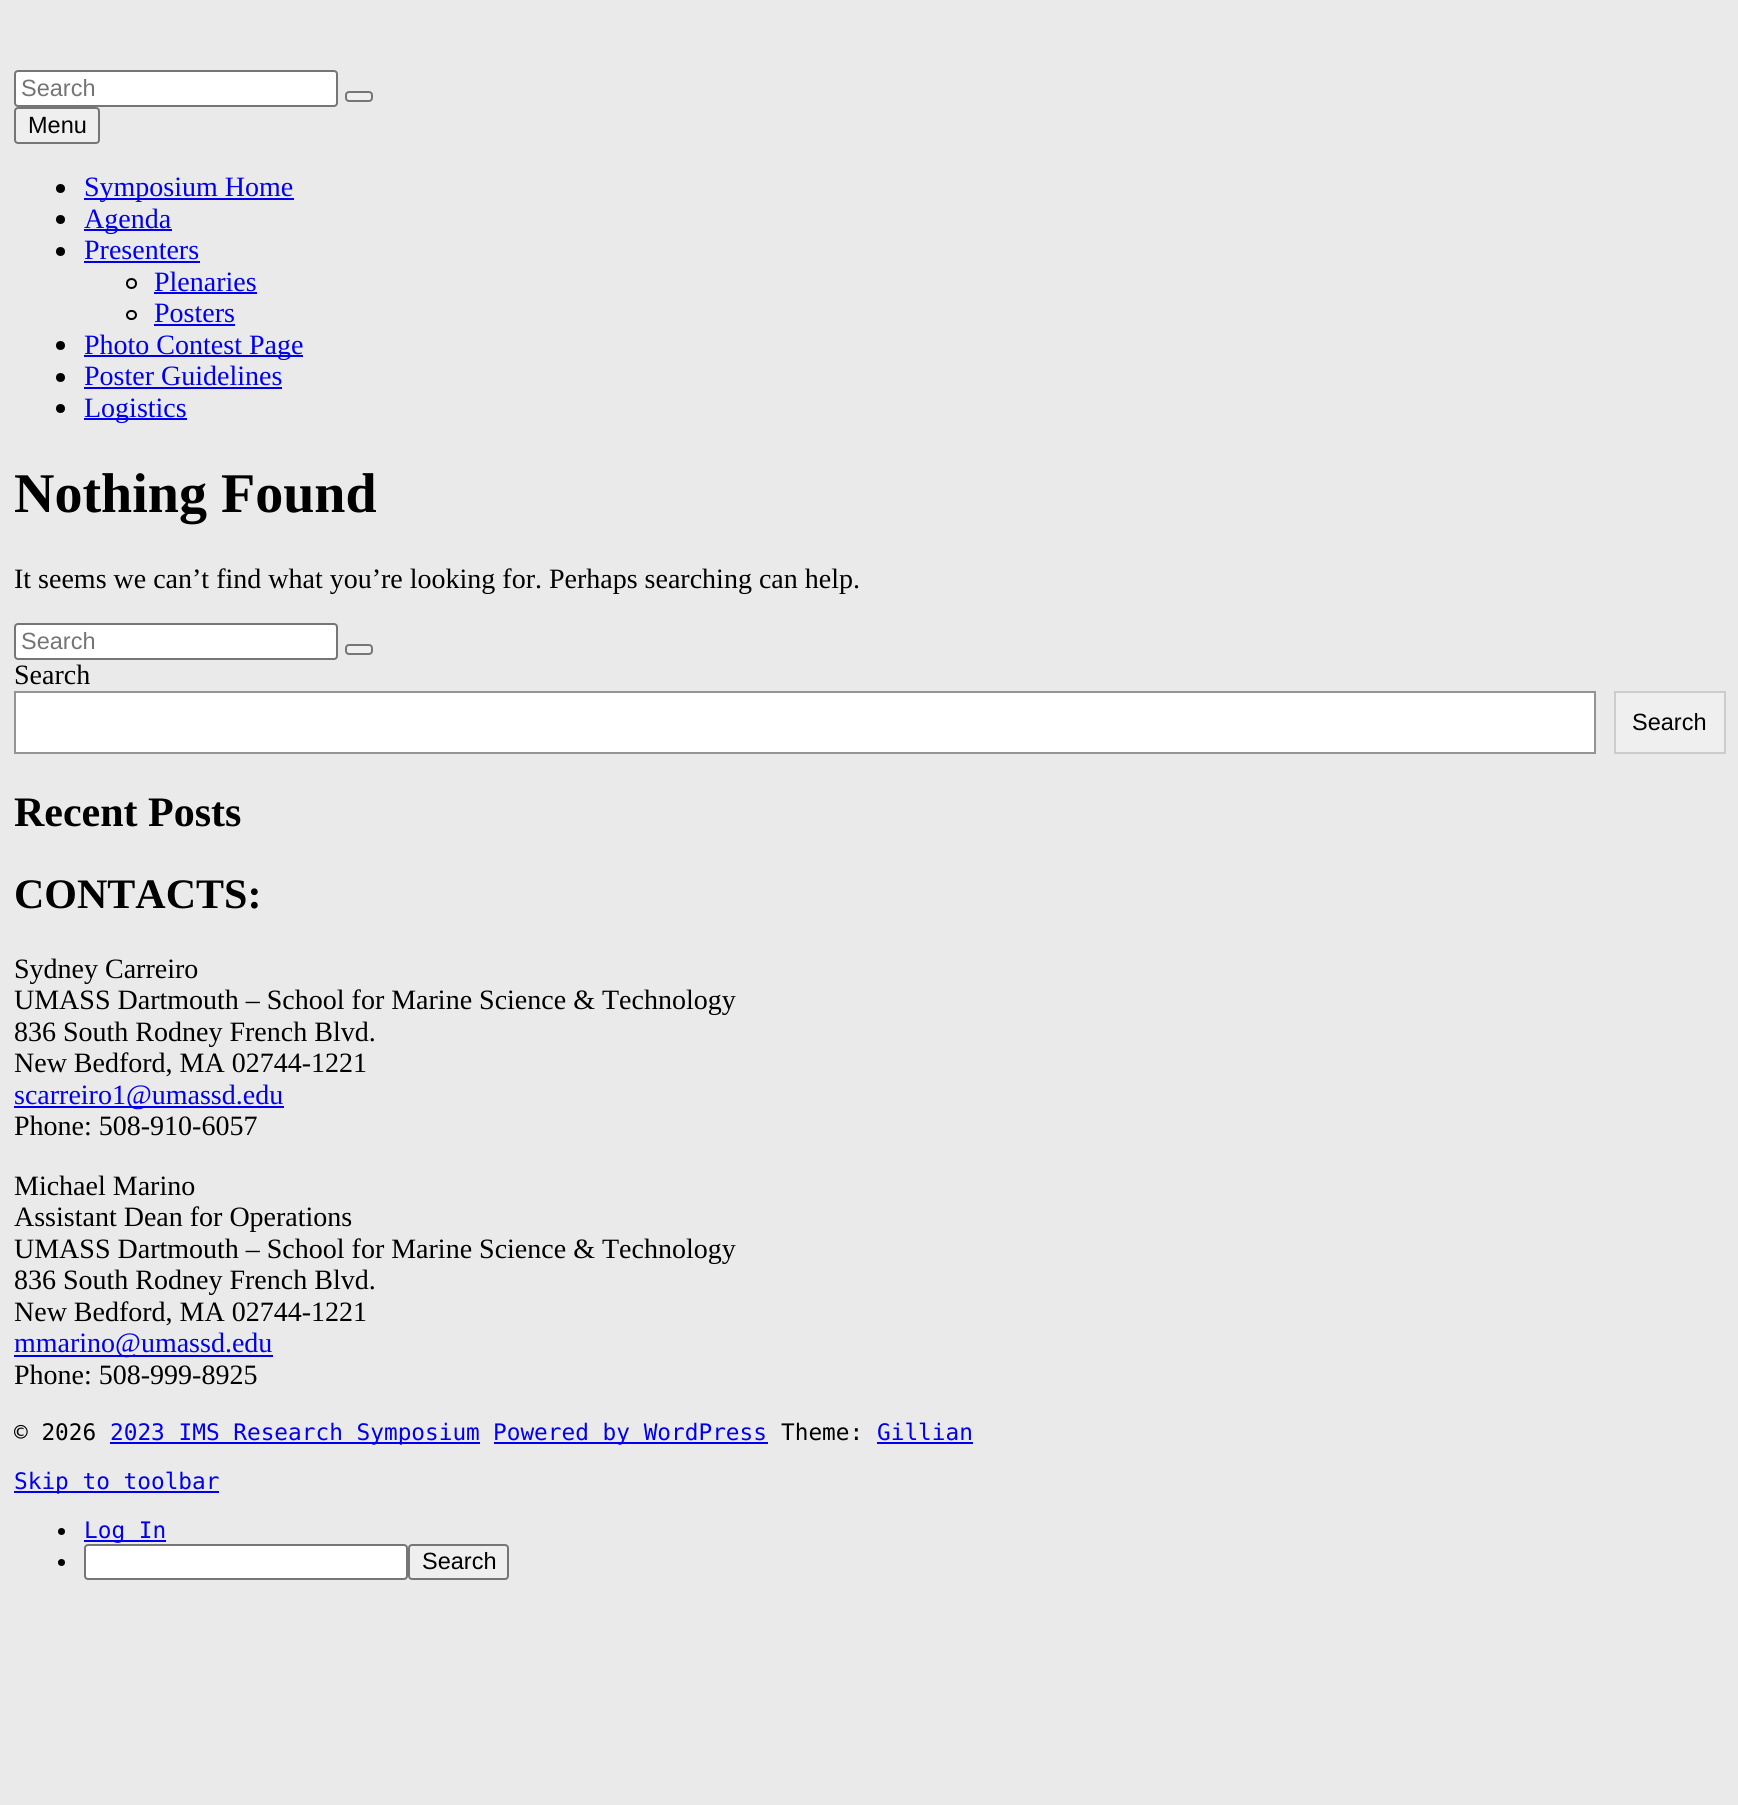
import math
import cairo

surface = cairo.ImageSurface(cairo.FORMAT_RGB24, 1738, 1805)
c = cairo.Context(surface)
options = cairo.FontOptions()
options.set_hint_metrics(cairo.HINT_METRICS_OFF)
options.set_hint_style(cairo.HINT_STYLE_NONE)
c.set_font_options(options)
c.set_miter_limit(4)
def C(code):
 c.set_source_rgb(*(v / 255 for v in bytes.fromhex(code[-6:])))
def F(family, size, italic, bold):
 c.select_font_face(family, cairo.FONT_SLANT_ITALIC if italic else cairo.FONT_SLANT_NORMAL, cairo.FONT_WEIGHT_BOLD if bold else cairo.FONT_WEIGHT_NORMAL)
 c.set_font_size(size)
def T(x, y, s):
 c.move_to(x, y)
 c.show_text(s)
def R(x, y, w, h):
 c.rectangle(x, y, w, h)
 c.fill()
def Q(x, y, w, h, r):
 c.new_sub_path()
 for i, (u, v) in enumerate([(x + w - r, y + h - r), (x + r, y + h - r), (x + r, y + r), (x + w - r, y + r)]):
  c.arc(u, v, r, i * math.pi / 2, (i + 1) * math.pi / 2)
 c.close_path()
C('eaeaea')
c.paint()
C('ffffff')
Q(15,71,322,35,3)
c.fill_preserve()
C('767676')
c.stroke()
F('Liberation Sans',23.5,0,0)
C('757575')
T(21,96,'Search')
C('efefef')
Q(346,92,26,9,3)
c.fill_preserve()
C('767676')
c.stroke()
C('efefef')
Q(15,108,84,35,3)
c.fill_preserve()
C('767676')
c.stroke()
C('000000')
T(28,133,'Menu')
c.new_path()
c.arc(60.5,188.5,4.5,0,2 * math.pi)
c.fill()
C('0000ee')
R(84,198,210,2)
F('Liberation Serif',28,0,0)
T(84,196,'Symposium Home')
C('000000')
c.new_path()
c.arc(60.5,219.5,4.5,0,2 * math.pi)
c.fill()
C('0000ee')
R(84,229,88,2)
T(84,228,'Agenda')
C('000000')
c.new_path()
c.arc(60.5,251.5,4.5,0,2 * math.pi)
c.fill()
C('0000ee')
T(84,259,'Presenters')
R(84,261,116,2)
c.new_path()
c.arc(131.5,283.5,4.5,0,2 * math.pi)
C('000000')
c.stroke()
C('0000ee')
T(154,291,'Plenaries')
R(154,292,103,2)
Q(127,311,9,8,4)
C('000000')
c.stroke()
C('0000ee')
T(154,322,'Posters')
R(154,324,81,2)
C('000000')
c.new_path()
c.arc(60.5,345.5,4.5,0,2 * math.pi)
c.fill()
C('0000ee')
R(84,355,219,2)
T(84,354,'Photo Contest Page')
C('000000')
c.new_path()
c.arc(60.5,377.5,4.5,0,2 * math.pi)
c.fill()
C('0000ee')
T(84,385,'Poster Guidelines')
R(84,387,198,2)
C('000000')
c.new_path()
c.arc(60.5,408.5,4.5,0,2 * math.pi)
c.fill()
C('0000ee')
R(84,418,103,2)
T(84,417,'Logistics')
F('Liberation Serif',56,0,1)
C('000000')
T(14,512,'Nothing Found')
F('Liberation Serif',28,0,0)
T(14,588,'It seems we can’t find what you’re looking for. Perhaps searching can help.')
C('ffffff')
Q(15,624,322,35,3)
c.fill_preserve()
C('767676')
c.stroke()
F('Liberation Sans',23.5,0,0)
C('757575')
T(21,649,'Search')
C('efefef')
Q(346,645,26,9,3)
c.fill_preserve()
C('767676')
c.stroke()
F('Liberation Serif',28,0,0)
C('000000')
T(14,684,'Search')
C('ffffff')
c.rectangle(15,692,1580,61)
c.fill_preserve()
C('949494')
c.stroke()
C('efefef')
c.rectangle(1615,692,110,61)
c.fill_preserve()
C('cccccc')
c.stroke()
F('Liberation Sans',23.5,0,0)
C('000000')
T(1632,730,'Search')
F('Liberation Serif',42,0,1)
T(14,826,'Recent Posts')
T(14,908,'CONTACTS:')
F('Liberation Serif',28,0,0)
T(14,978,'Sydney Carreiro')
T(14,1009,'UMASS Dartmouth – School for Marine Science & Technology')
T(14,1041,'836 South Rodney French Blvd.')
T(14,1072,'New Bedford, MA 02744-1221')
C('0000ee')
R(14,1106,270,2)
T(14,1104,'scarreiro1@umassd.edu')
C('000000')
T(14,1135,'Phone: 508-910-6057')
T(14,1195,'Michael Marino')
T(14,1226,'Assistant Dean for Operations')
T(14,1258,'UMASS Dartmouth – School for Marine Science & Technology')
T(14,1289,'836 South Rodney French Blvd.')
T(14,1321,'New Bedford, MA 02744-1221')
C('0000ee')
R(14,1355,259,2)
T(14,1352,'mmarino@umassd.edu')
C('000000')
T(14,1384,'Phone: 508-999-8925')
F('DejaVu Sans Mono',22.75,0,0)
T(14,1440,'© 2026')
C('0000ee')
R(110,1442,370,2)
T(110,1440,'2023 IMS Research Symposium')
R(494,1442,274,2)
T(493,1440,'Powered by WordPress')
C('000000')
T(781,1440,'Theme:')
C('0000ee')
T(877,1440,'Gillian')
R(877,1442,96,2)
R(14,1491,205,2)
T(14,1489,'Skip to toolbar')
C('000000')
c.new_path()
c.arc(61.5,1531.5,3.5,0,2 * math.pi)
c.fill()
C('0000ee')
R(84,1540,82,2)
T(84,1538,'Log In')
C('000000')
c.new_path()
c.arc(61.5,1562.5,3.5,0,2 * math.pi)
c.fill()
C('ffffff')
Q(85,1545,322,34,3)
c.fill_preserve()
C('767676')
c.stroke()
C('efefef')
Q(409,1545,99,34,3)
c.fill_preserve()
C('767676')
c.stroke()
F('Liberation Sans',23.5,0,0)
C('000000')
T(422,1569,'Search')
surface.write_to_png('o.png')
